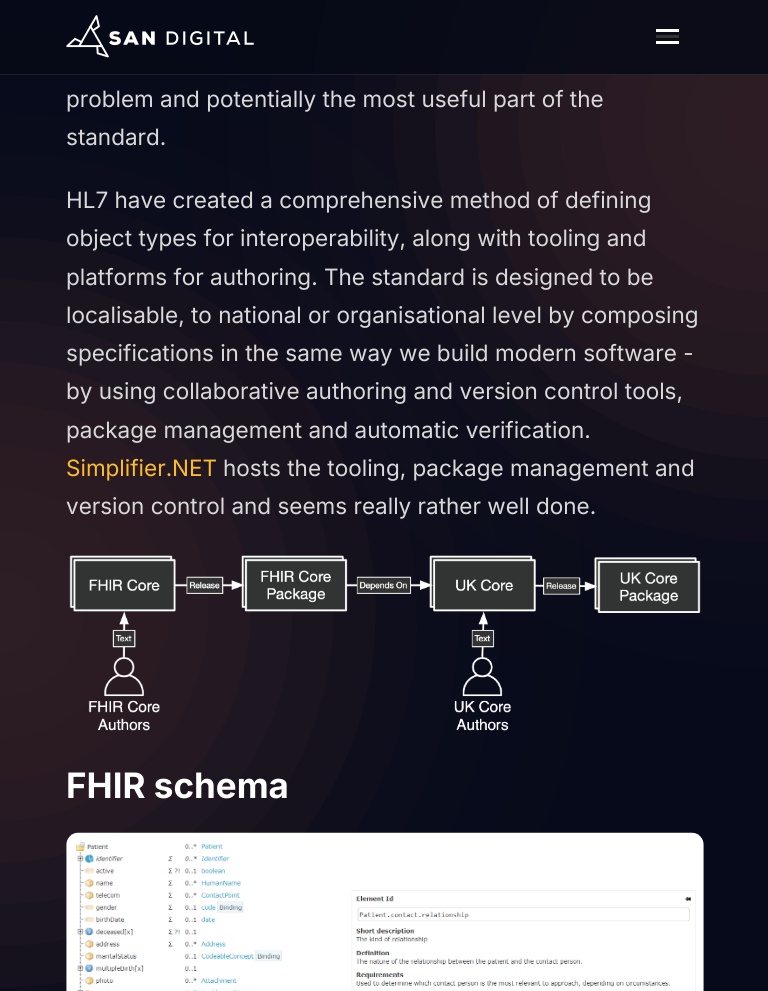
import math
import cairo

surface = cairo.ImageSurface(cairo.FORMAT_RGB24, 768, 991)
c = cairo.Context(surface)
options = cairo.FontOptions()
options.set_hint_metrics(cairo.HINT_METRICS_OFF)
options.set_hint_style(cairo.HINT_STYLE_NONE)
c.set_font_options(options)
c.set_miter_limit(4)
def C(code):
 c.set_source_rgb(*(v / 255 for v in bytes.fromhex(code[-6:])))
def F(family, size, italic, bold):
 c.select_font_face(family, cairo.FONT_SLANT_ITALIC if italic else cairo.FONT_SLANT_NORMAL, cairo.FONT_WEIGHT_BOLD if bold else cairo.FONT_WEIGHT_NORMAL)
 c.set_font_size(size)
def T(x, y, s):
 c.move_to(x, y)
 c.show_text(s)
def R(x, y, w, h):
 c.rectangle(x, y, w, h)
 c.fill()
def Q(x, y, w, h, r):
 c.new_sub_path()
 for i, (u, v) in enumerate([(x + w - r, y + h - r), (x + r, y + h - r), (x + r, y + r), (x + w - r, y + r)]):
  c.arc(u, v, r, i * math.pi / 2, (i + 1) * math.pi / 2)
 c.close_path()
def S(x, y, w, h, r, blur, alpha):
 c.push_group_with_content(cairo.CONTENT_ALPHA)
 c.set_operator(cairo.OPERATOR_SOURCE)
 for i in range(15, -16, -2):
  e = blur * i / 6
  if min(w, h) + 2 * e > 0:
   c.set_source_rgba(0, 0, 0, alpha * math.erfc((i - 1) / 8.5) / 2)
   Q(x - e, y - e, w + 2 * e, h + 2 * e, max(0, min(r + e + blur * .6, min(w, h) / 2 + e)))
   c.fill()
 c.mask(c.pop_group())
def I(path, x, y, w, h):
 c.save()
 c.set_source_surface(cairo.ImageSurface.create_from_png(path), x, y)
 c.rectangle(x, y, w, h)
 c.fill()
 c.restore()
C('060a1a')
c.paint()
C('2d1d24')
S(-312,300,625,625,312.5,125,1)
C('89483b')
S(456,-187,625,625,312.5,125,.3)
c.set_source_rgba(0.024,0.039,0.09,0.85)
R(0,0,768,75)
c.set_source_rgba(1,1,1,0.1)
R(0,74,768,1)
I('1.png',66,15,188,43)
C('333333')
R(656,35,23,3)
C('ffffff')
R(656,29,23,3)
R(656,41,23,3)
F('Inter',22.5,0,0)
C('d9d9d9')
T(66,107,'problem and potentially the most useful part of the')
T(66,145,'standard.')
T(66,208,'HL7 have created a comprehensive method of defining')
T(66,246,'object types for interoperability, along with tooling and')
T(66,285,'platforms for authoring. The standard is designed to be')
T(66,323,'localisable, to national or organisational level by composing')
T(66,361,'specifications in the same way we build modern software -')
T(66,399,'by using collaborative authoring and version control tools,')
T(66,438,'package management and automatic verification.')
C('fdbb2d')
T(66,476,'Simplifier.NET')
C('d9d9d9')
T(223,476,'hosts the tooling, package management and')
T(66,514,'version control and seems really rather well done.')
I('2.png',69,555,632,176)
F('Inter',35,0,1)
C('ffffff')
T(66,798,'FHIR schema')
I('3.png',66,832,638,159)
surface.write_to_png('o.png')
